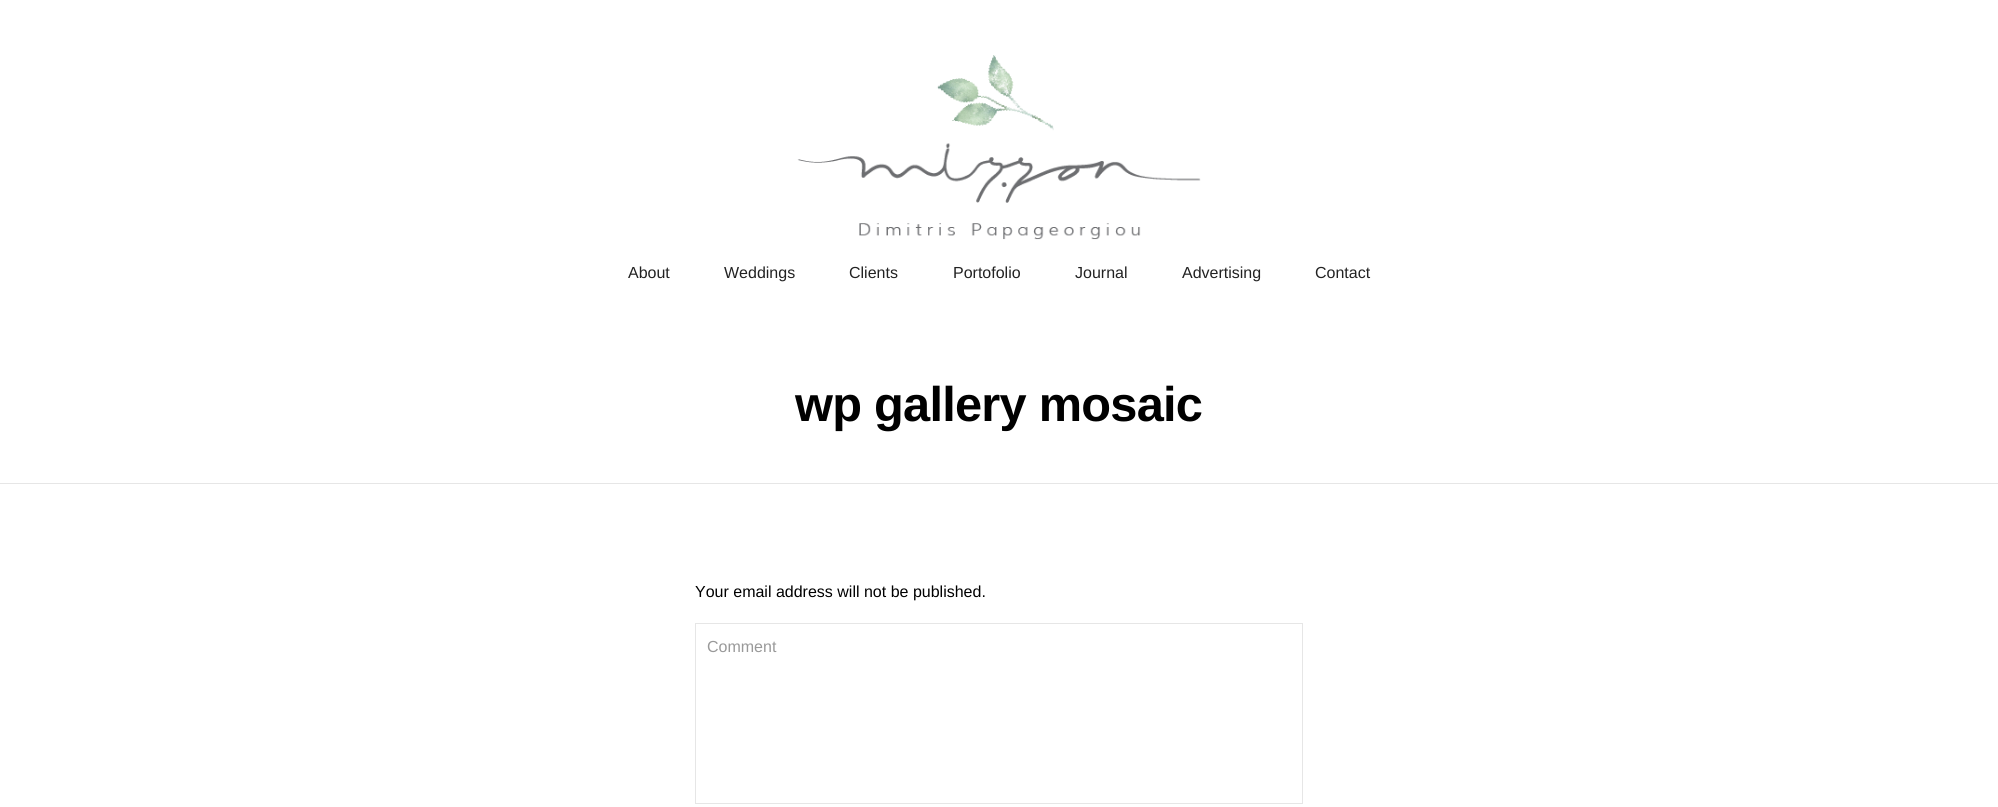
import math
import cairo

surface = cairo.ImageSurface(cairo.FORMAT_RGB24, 1998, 807)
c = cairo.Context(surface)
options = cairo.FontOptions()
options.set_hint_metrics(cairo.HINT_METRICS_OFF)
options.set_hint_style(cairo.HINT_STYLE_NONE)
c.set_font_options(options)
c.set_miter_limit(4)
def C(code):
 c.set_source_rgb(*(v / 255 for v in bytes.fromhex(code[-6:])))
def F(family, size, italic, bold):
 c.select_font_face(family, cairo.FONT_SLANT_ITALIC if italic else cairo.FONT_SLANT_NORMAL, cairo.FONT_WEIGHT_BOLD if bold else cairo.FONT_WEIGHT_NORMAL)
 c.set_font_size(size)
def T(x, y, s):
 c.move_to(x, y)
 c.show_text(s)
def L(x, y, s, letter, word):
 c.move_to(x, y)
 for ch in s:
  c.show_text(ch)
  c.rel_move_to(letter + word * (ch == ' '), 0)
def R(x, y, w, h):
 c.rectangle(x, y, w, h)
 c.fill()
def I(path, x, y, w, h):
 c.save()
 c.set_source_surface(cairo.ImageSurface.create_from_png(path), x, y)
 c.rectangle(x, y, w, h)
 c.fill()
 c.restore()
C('ffffff')
c.paint()
I('1.png',797,55,404,185)
F('Liberation Sans',16,0,0)
C('222222')
T(628,278,'About')
T(724,278,'Weddings')
T(849,278,'Clients')
T(953,278,'Portofolio')
T(1075,278,'Journal')
T(1182,278,'Advertising')
T(1315,278,'Contact')
F('Liberation Sans',48.75,0,1)
C('000000')
L(795,421,'wp gallery mosaic',-.75,0)
C('e6e6e6')
R(0,483,1998,1)
F('Liberation Sans',16,0,0)
C('000000')
T(695,597,'Your email address will not be published.')
c.rectangle(695.5,623.5,607,180)
C('e6e6e6')
c.set_line_width(1)
c.stroke()
C('999999')
T(707,652,'Comment')
surface.write_to_png('o.png')
